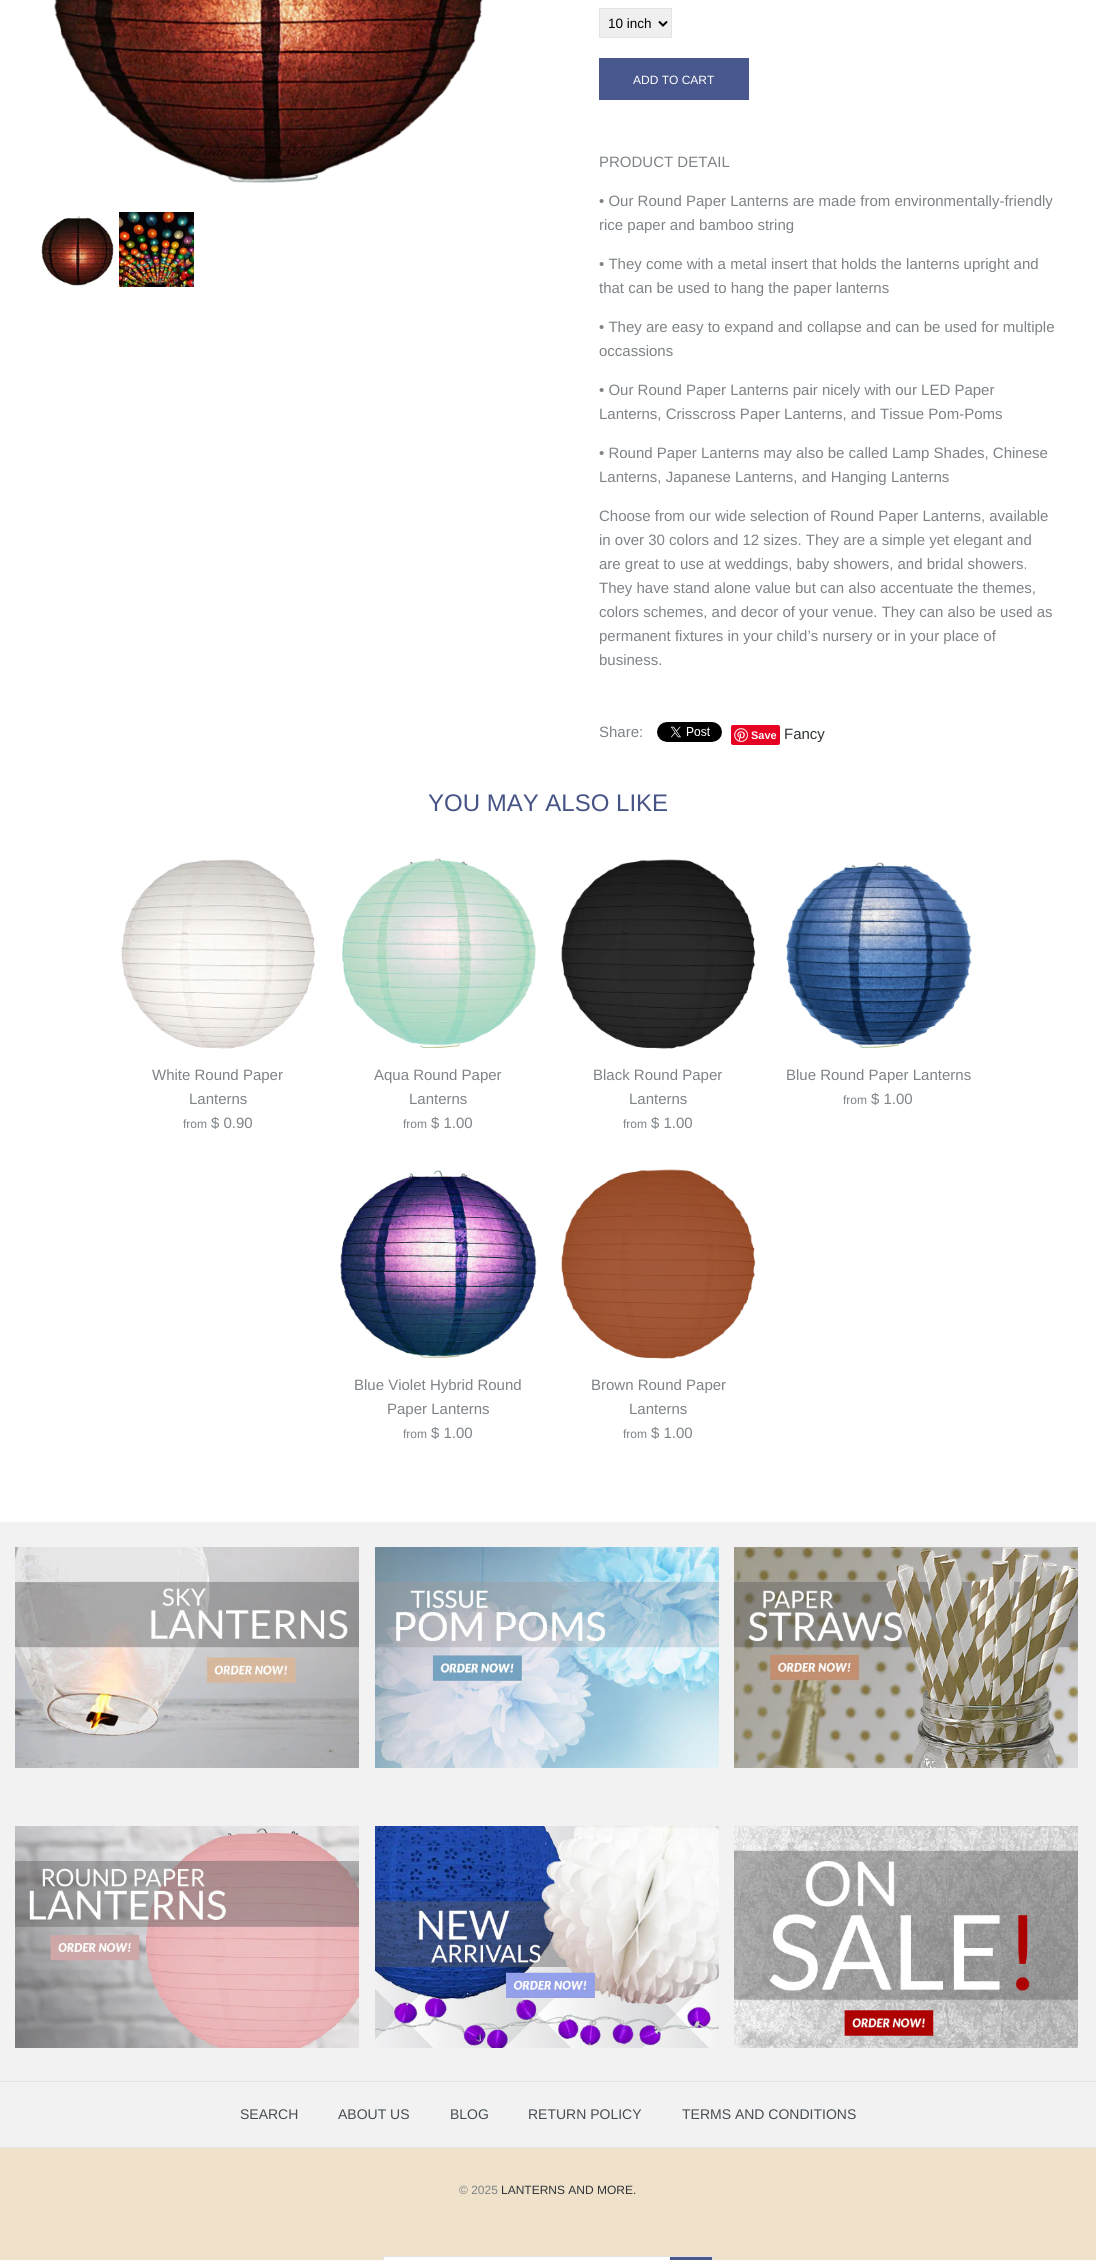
import math
import cairo

surface = cairo.ImageSurface(cairo.FORMAT_RGB24, 1096, 2260)
c = cairo.Context(surface)
options = cairo.FontOptions()
options.set_hint_metrics(cairo.HINT_METRICS_OFF)
options.set_hint_style(cairo.HINT_STYLE_NONE)
c.set_font_options(options)
c.set_miter_limit(4)
def C(code):
 c.set_source_rgb(*(v / 255 for v in bytes.fromhex(code[-6:])))
def F(family, size, italic, bold):
 c.select_font_face(family, cairo.FONT_SLANT_ITALIC if italic else cairo.FONT_SLANT_NORMAL, cairo.FONT_WEIGHT_BOLD if bold else cairo.FONT_WEIGHT_NORMAL)
 c.set_font_size(size)
def T(x, y, s):
 c.move_to(x, y)
 c.show_text(s)
def R(x, y, w, h):
 c.rectangle(x, y, w, h)
 c.fill()
def Q(x, y, w, h, r):
 c.new_sub_path()
 for i, (u, v) in enumerate([(x + w - r, y + h - r), (x + r, y + h - r), (x + r, y + r), (x + w - r, y + r)]):
  c.arc(u, v, r, i * math.pi / 2, (i + 1) * math.pi / 2)
 c.close_path()
def I(path, x, y, w, h):
 c.save()
 c.set_source_surface(cairo.ImageSurface.create_from_png(path), x, y)
 c.rectangle(x, y, w, h)
 c.fill()
 c.restore()
C('efe1ca')
c.paint()
C('ffffff')
R(0,0,1096,1522)
I('1.png',54,0,429,183)
I('2.png',41,216,73,70)
I('3.png',119,212,75,75)
C('efefef')
c.rectangle(599.5,8.5,72,29)
c.fill_preserve()
C('e3e3e3')
c.set_line_width(1)
c.stroke()
c.new_path()
c.move_to(659,21.5)
c.line_to(663,25.5)
c.line_to(667,21.5)
C('000000')
c.set_line_width(2)
c.stroke()
F('Liberation Sans',13.5,0,0)
T(608,28,'10 inch')
C('48578e')
R(599,58,150,42)
F('Liberation Sans',12,0,0)
C('ffffff')
T(633,84,'ADD TO CART')
F('Liberation Sans',15,0,0)
C('7d8387')
T(599,167,'PRODUCT DETAIL')
T(599,206,'• Our Round Paper Lanterns are made from environmentally-friendly')
T(599,230,'rice paper and bamboo string')
T(599,269,'• They come with a metal insert that holds the lanterns upright and')
T(599,293,'that can be used to hang the paper lanterns')
T(599,332,'• They are easy to expand and collapse and can be used for multiple')
T(599,356,'occassions')
T(599,395,'• Our Round Paper Lanterns pair nicely with our LED Paper')
T(599,419,'Lanterns, Crisscross Paper Lanterns, and Tissue Pom-Poms')
T(599,458,'• Round Paper Lanterns may also be called Lamp Shades, Chinese')
T(599,482,'Lanterns, Japanese Lanterns, and Hanging Lanterns')
T(599,521,'Choose from our wide selection of Round Paper Lanterns, available')
T(599,545,'in over 30 colors and 12 sizes. They are a simple yet elegant and')
T(599,569,'are great to use at weddings, baby showers, and bridal showers.')
T(599,593,'They have stand alone value but can also accentuate the themes,')
T(599,617,'colors schemes, and decor of your venue. They can also be used as')
T(599,641,'permanent fixtures in your child’s nursery or in your place of')
T(599,665,'business.')
T(599,737,'Share:')
I('4.png',657,722,65,20)
C('e60023')
Q(731,725,49,20,2)
c.fill()
I('5.png',734,728,14,14)
F('Liberation Sans',11,0,1)
C('ffffff')
T(751,739,'Save')
F('Liberation Sans',15,0,0)
C('2e3438')
T(784,739,'Fancy')
F('Liberation Sans',24,0,0)
C('455385')
T(428,811,'YOU MAY ALSO LIKE')
I('6.png',121,859,195,190)
F('Liberation Sans',15,0,0)
C('7d8387')
T(152,1080,'White Round Paper')
T(189,1104,'Lanterns')
F('Liberation Sans',12,0,0)
T(183,1128,'from')
F('Liberation Sans',15,0,0)
T(211,1128,'$ 0.90')
I('7.png',342,858,194,190)
T(374,1080,'Aqua Round Paper')
T(409,1104,'Lanterns')
F('Liberation Sans',12,0,0)
T(403,1128,'from')
F('Liberation Sans',15,0,0)
T(431,1128,'$ 1.00')
I('8.png',561,859,195,190)
T(593,1080,'Black Round Paper')
T(629,1104,'Lanterns')
F('Liberation Sans',12,0,0)
T(623,1128,'from')
F('Liberation Sans',15,0,0)
T(651,1128,'$ 1.00')
I('9.png',786,862,186,186)
T(786,1080,'Blue Round Paper Lanterns')
F('Liberation Sans',12,0,0)
T(843,1104,'from')
F('Liberation Sans',15,0,0)
T(871,1104,'$ 1.00')
I('10.png',340,1170,197,188)
T(354,1390,'Blue Violet Hybrid Round')
T(387,1414,'Paper Lanterns')
F('Liberation Sans',12,0,0)
T(403,1438,'from')
F('Liberation Sans',15,0,0)
T(431,1438,'$ 1.00')
I('11.png',561,1169,195,190)
T(591,1390,'Brown Round Paper')
T(629,1414,'Lanterns')
F('Liberation Sans',12,0,0)
T(623,1438,'from')
F('Liberation Sans',15,0,0)
T(651,1438,'$ 1.00')
C('f2f2f2')
R(0,1522,1096,559)
I('12.png',15,1547,344,221)
I('13.png',375,1547,344,221)
I('14.png',734,1547,344,221)
I('15.png',15,1826,344,222)
I('16.png',375,1826,344,222)
I('17.png',734,1826,344,222)
R(0,2082,1096,65)
C('e3e3e3')
R(0,2081,1096,1)
R(0,2147,1096,1)
F('Liberation Sans',14,0,0)
C('464e54')
T(240,2119,'SEARCH')
T(338,2119,'ABOUT US')
T(450,2119,'BLOG')
T(528,2119,'RETURN POLICY')
T(682,2119,'TERMS AND CONDITIONS')
F('Liberation Sans',12,0,0)
C('7d8387')
T(459,2194,'© 2025')
C('2e3438')
T(501,2194,'LANTERNS AND MORE.')
C('ffffff')
R(383,2257,287,3)
c.rectangle(383.5,2256.5,329,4)
C('e3e3e3')
c.set_line_width(1)
c.stroke()
C('48578e')
R(670,2257,42,3)
surface.write_to_png('o.png')
